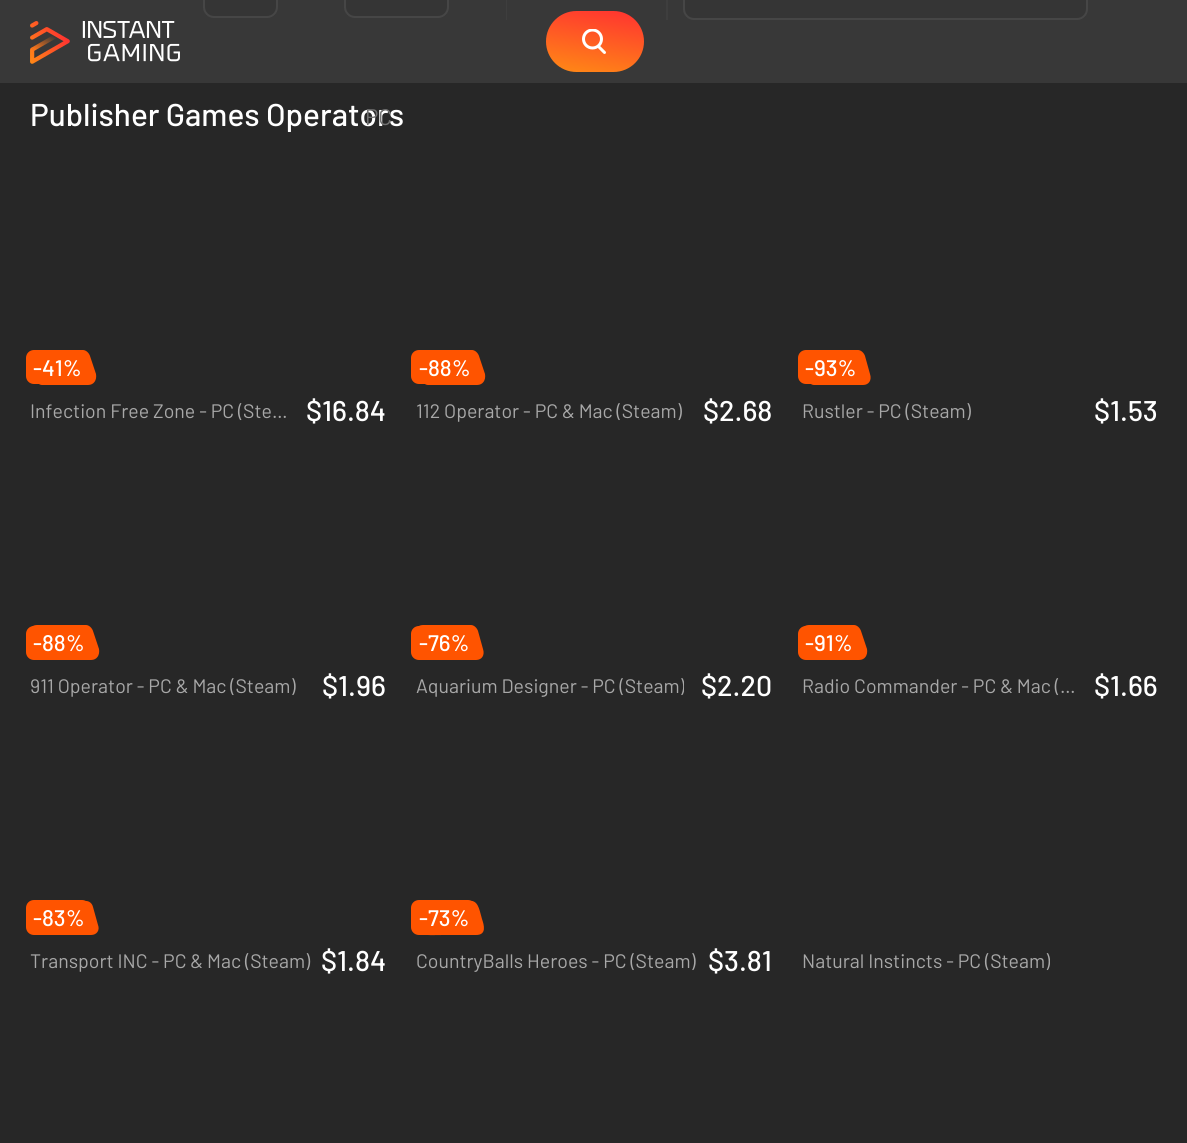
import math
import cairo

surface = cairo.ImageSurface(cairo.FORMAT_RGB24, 1187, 1143)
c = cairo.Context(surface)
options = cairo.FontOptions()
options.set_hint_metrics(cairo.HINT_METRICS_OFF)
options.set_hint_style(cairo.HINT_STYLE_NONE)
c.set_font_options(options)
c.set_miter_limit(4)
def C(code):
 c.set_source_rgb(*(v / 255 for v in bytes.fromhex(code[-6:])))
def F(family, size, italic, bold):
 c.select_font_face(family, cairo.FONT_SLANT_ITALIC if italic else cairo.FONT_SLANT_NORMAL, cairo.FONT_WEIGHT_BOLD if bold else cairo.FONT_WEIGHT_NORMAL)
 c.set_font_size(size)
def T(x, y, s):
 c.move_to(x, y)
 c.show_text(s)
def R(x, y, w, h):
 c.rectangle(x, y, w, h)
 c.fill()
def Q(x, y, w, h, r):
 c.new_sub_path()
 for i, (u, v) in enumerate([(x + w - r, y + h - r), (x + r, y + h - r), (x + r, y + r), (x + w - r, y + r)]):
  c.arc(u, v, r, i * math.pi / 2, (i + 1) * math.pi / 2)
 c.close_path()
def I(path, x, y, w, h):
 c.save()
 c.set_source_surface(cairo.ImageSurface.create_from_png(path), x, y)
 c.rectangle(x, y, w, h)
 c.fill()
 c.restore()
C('272727')
c.paint()
C('383838')
R(0,0,1187,83)
C('353535')
Q(203,-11,75,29,11)
c.fill()
Q(204,-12,73,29,10)
c.set_source_rgba(0.431,0.431,0.431,0.3)
c.stroke()
C('353535')
Q(344,-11,105,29,11)
c.fill()
Q(345,-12,103,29,10)
c.set_source_rgba(0.431,0.431,0.431,0.3)
c.stroke()
C('3e3e3e')
c.new_path()
c.move_to(506,20)
c.line_to(506,-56)
c.line_to(507,-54)
c.line_to(507,20)
c.close_path()
c.fill()
c.new_path()
c.move_to(666,20)
c.line_to(666,-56)
c.line_to(668,-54)
c.line_to(668,20)
c.close_path()
c.fill()
C('353535')
Q(683,-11,405,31,11)
c.fill()
Q(684,-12,403,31,10)
c.set_source_rgba(0.431,0.431,0.431,0.3)
c.stroke()
F('Barlow Medium',31.5,0,0)
C('ffffff')
T(30,126,'Publisher Games Operators')
C('ff5400')
c.new_path()
c.move_to(34,350)
c.line_to(79,350)
c.curve_to(83.5,350,87,353.5,87,358)
c.line_to(87,384)
c.line_to(34,384)
c.curve_to(29.5,384,26,380.5,26,376)
c.line_to(26,358)
c.curve_to(26,353.5,29.5,350,34,350)
c.close_path()
c.fill()
c.new_path()
c.move_to(37,350)
c.line_to(83,350)
c.curve_to(86,350,89,353,90,356)
c.line_to(96,374)
c.curve_to(97,380,94,385,88,385)
c.line_to(42,385)
c.curve_to(39,385,36,382,35,379)
c.line_to(30,361)
c.curve_to(28,355,31,350,37,350)
c.close_path()
c.fill()
F('Barlow Medium',22.5,0,0)
C('ffffff')
T(33,376,'-41%')
F('Barlow',19.5,0,0)
C('a8a8a8')
T(30,418,'Infection Free Zone - PC (Ste…')
F('Barlow Medium',28.5,0,0)
C('ffffff')
T(306,421,'$16.84')
C('ff5400')
c.new_path()
c.move_to(419,350)
c.line_to(469,350)
c.curve_to(473.5,350,477,353.5,477,358)
c.line_to(477,384)
c.line_to(419,384)
c.curve_to(414.5,384,411,380.5,411,376)
c.line_to(411,358)
c.curve_to(411,353.5,414.5,350,419,350)
c.close_path()
c.fill()
c.new_path()
c.move_to(423,350)
c.line_to(472,350)
c.curve_to(475,350,478,353,479,356)
c.line_to(485,374)
c.curve_to(486,380,483,385,477,385)
c.line_to(428,385)
c.curve_to(425,385,422,382,421,379)
c.line_to(416,361)
c.curve_to(414,355,417,350,423,350)
c.close_path()
c.fill()
F('Barlow Medium',22.5,0,0)
C('ffffff')
T(419,376,'-88%')
F('Barlow',19.5,0,0)
C('a8a8a8')
T(416,418,'112 Operator - PC & Mac (Steam)')
F('Barlow Medium',28.5,0,0)
C('ffffff')
T(703,421,'$2.68')
C('ff5400')
c.new_path()
c.move_to(806,350)
c.line_to(855,350)
c.curve_to(859.5,350,863,353.5,863,358)
c.line_to(863,384)
c.line_to(806,384)
c.curve_to(801.5,384,798,380.5,798,376)
c.line_to(798,358)
c.curve_to(798,353.5,801.5,350,806,350)
c.close_path()
c.fill()
c.new_path()
c.move_to(809,350)
c.line_to(858,350)
c.curve_to(861,350,864,353,865,356)
c.line_to(870,374)
c.curve_to(872,380,869,385,863,385)
c.line_to(814,385)
c.curve_to(811,385,808,382,807,379)
c.line_to(802,361)
c.curve_to(800,355,803,350,809,350)
c.close_path()
c.fill()
F('Barlow Medium',22.5,0,0)
C('ffffff')
T(805,376,'-93%')
F('Barlow',19.5,0,0)
C('a8a8a8')
T(802,418,'Rustler - PC (Steam)')
F('Barlow Medium',28.5,0,0)
C('ffffff')
T(1094,421,'$1.53')
C('ff5400')
c.new_path()
c.move_to(34,626)
c.line_to(82,626)
c.curve_to(86.5,626,90,629.5,90,634)
c.line_to(90,660)
c.line_to(34,660)
c.curve_to(29.5,660,26,656.5,26,652)
c.line_to(26,634)
c.curve_to(26,629.5,29.5,626,34,626)
c.close_path()
c.fill()
c.new_path()
c.move_to(37,625)
c.line_to(86,625)
c.curve_to(89,625,92,628,93,631)
c.line_to(99,649)
c.curve_to(100,655,97,660,91,660)
c.line_to(42,660)
c.curve_to(39,660,36,657,35,654)
c.line_to(30,636)
c.curve_to(28,630,31,625,37,625)
c.close_path()
c.fill()
F('Barlow Medium',22.5,0,0)
C('ffffff')
T(33,651,'-88%')
F('Barlow',19.5,0,0)
C('a8a8a8')
T(30,693,'911 Operator - PC & Mac (Steam)')
F('Barlow Medium',28.5,0,0)
C('ffffff')
T(322,696,'$1.96')
C('ff5400')
c.new_path()
c.move_to(419,626)
c.line_to(468,626)
c.curve_to(472.5,626,476,629.5,476,634)
c.line_to(476,660)
c.line_to(419,660)
c.curve_to(414.5,660,411,656.5,411,652)
c.line_to(411,634)
c.curve_to(411,629.5,414.5,626,419,626)
c.close_path()
c.fill()
c.new_path()
c.move_to(423,625)
c.line_to(471,625)
c.curve_to(474,625,477,628,478,631)
c.line_to(483,649)
c.curve_to(485,655,482,660,476,660)
c.line_to(428,660)
c.curve_to(425,660,422,657,421,654)
c.line_to(416,636)
c.curve_to(414,630,417,625,423,625)
c.close_path()
c.fill()
F('Barlow Medium',22.5,0,0)
C('ffffff')
T(419,651,'-76%')
c.save()
c.rectangle(416,674,268,24)
c.clip()
F('Barlow',19.5,0,0)
C('a8a8a8')
T(416,693,'Aquarium Designer - PC (Steam)')
c.restore()
F('Barlow Medium',28.5,0,0)
T(701,696,'$2.20')
C('ff5400')
c.new_path()
c.move_to(806,626)
c.line_to(850,626)
c.curve_to(854.5,626,858,629.5,858,634)
c.line_to(858,660)
c.line_to(806,660)
c.curve_to(801.5,660,798,656.5,798,652)
c.line_to(798,634)
c.curve_to(798,629.5,801.5,626,806,626)
c.close_path()
c.fill()
c.new_path()
c.move_to(809,625)
c.line_to(854,625)
c.curve_to(857,625,860,628,861,631)
c.line_to(867,649)
c.curve_to(868,655,865,660,859,660)
c.line_to(814,660)
c.curve_to(811,660,808,657,807,654)
c.line_to(802,636)
c.curve_to(800,630,803,625,809,625)
c.close_path()
c.fill()
F('Barlow Medium',22.5,0,0)
C('ffffff')
T(805,651,'-91%')
F('Barlow',19.5,0,0)
C('a8a8a8')
T(802,693,'Radio Commander - PC & Mac (…')
F('Barlow Medium',28.5,0,0)
C('ffffff')
T(1094,696,'$1.66')
C('ff5400')
c.new_path()
c.move_to(34,900)
c.line_to(82,900)
c.curve_to(86.5,900,90,903.5,90,908)
c.line_to(90,935)
c.line_to(34,935)
c.curve_to(29.5,935,26,931.5,26,927)
c.line_to(26,908)
c.curve_to(26,903.5,29.5,900,34,900)
c.close_path()
c.fill()
c.new_path()
c.move_to(37,901)
c.line_to(86,901)
c.curve_to(89,901,92,903,93,907)
c.line_to(98,925)
c.curve_to(100,930,97,935,91,935)
c.line_to(42,935)
c.curve_to(39,935,36,932,35,929)
c.line_to(30,911)
c.curve_to(28,905,31,901,37,901)
c.close_path()
c.fill()
F('Barlow Medium',22.5,0,0)
C('ffffff')
T(33,926,'-83%')
F('Barlow',19.5,0,0)
C('a8a8a8')
T(30,968,'Transport INC - PC & Mac (Steam)')
F('Barlow Medium',28.5,0,0)
C('ffffff')
T(321,971,'$1.84')
C('ff5400')
c.new_path()
c.move_to(419,900)
c.line_to(468,900)
c.curve_to(472.5,900,476,903.5,476,908)
c.line_to(476,935)
c.line_to(419,935)
c.curve_to(414.5,935,411,931.5,411,927)
c.line_to(411,908)
c.curve_to(411,903.5,414.5,900,419,900)
c.close_path()
c.fill()
c.new_path()
c.move_to(423,901)
c.line_to(472,901)
c.curve_to(479,902,480,913,482,919)
c.curve_to(484,925,487,935,476,935)
c.line_to(444,935)
c.curve_to(421,935,423,938,417,917)
c.curve_to(415,911,412,901,423,901)
c.close_path()
c.fill()
F('Barlow Medium',22.5,0,0)
C('ffffff')
T(419,926,'-73%')
F('Barlow',19.5,0,0)
C('a8a8a8')
T(416,968,'CountryBalls Heroes - PC (Steam)')
F('Barlow Medium',28.5,0,0)
C('ffffff')
T(708,971,'$3.81')
c.save()
c.rectangle(803,948,247,24)
c.clip()
F('Barlow',19.5,0,0)
C('a8a8a8')
T(802,968,'Natural Instincts - PC (Steam)')
c.restore()
I('1.png',30,21,150,43)
gradient = cairo.LinearGradient(588,79,601,3.1)
gradient.add_color_stop_rgba(0,1,0.541,0.082,1)
gradient.add_color_stop_rgba(1,1,0.192,0.192,1)
c.set_source(gradient)
Q(546,11,98,61,30.5)
c.fill()
I('2.png',582,29,24,25)
F('Barlow',22.5,0,0)
C('717171')
T(365,125,'PC')
surface.write_to_png('o.png')
